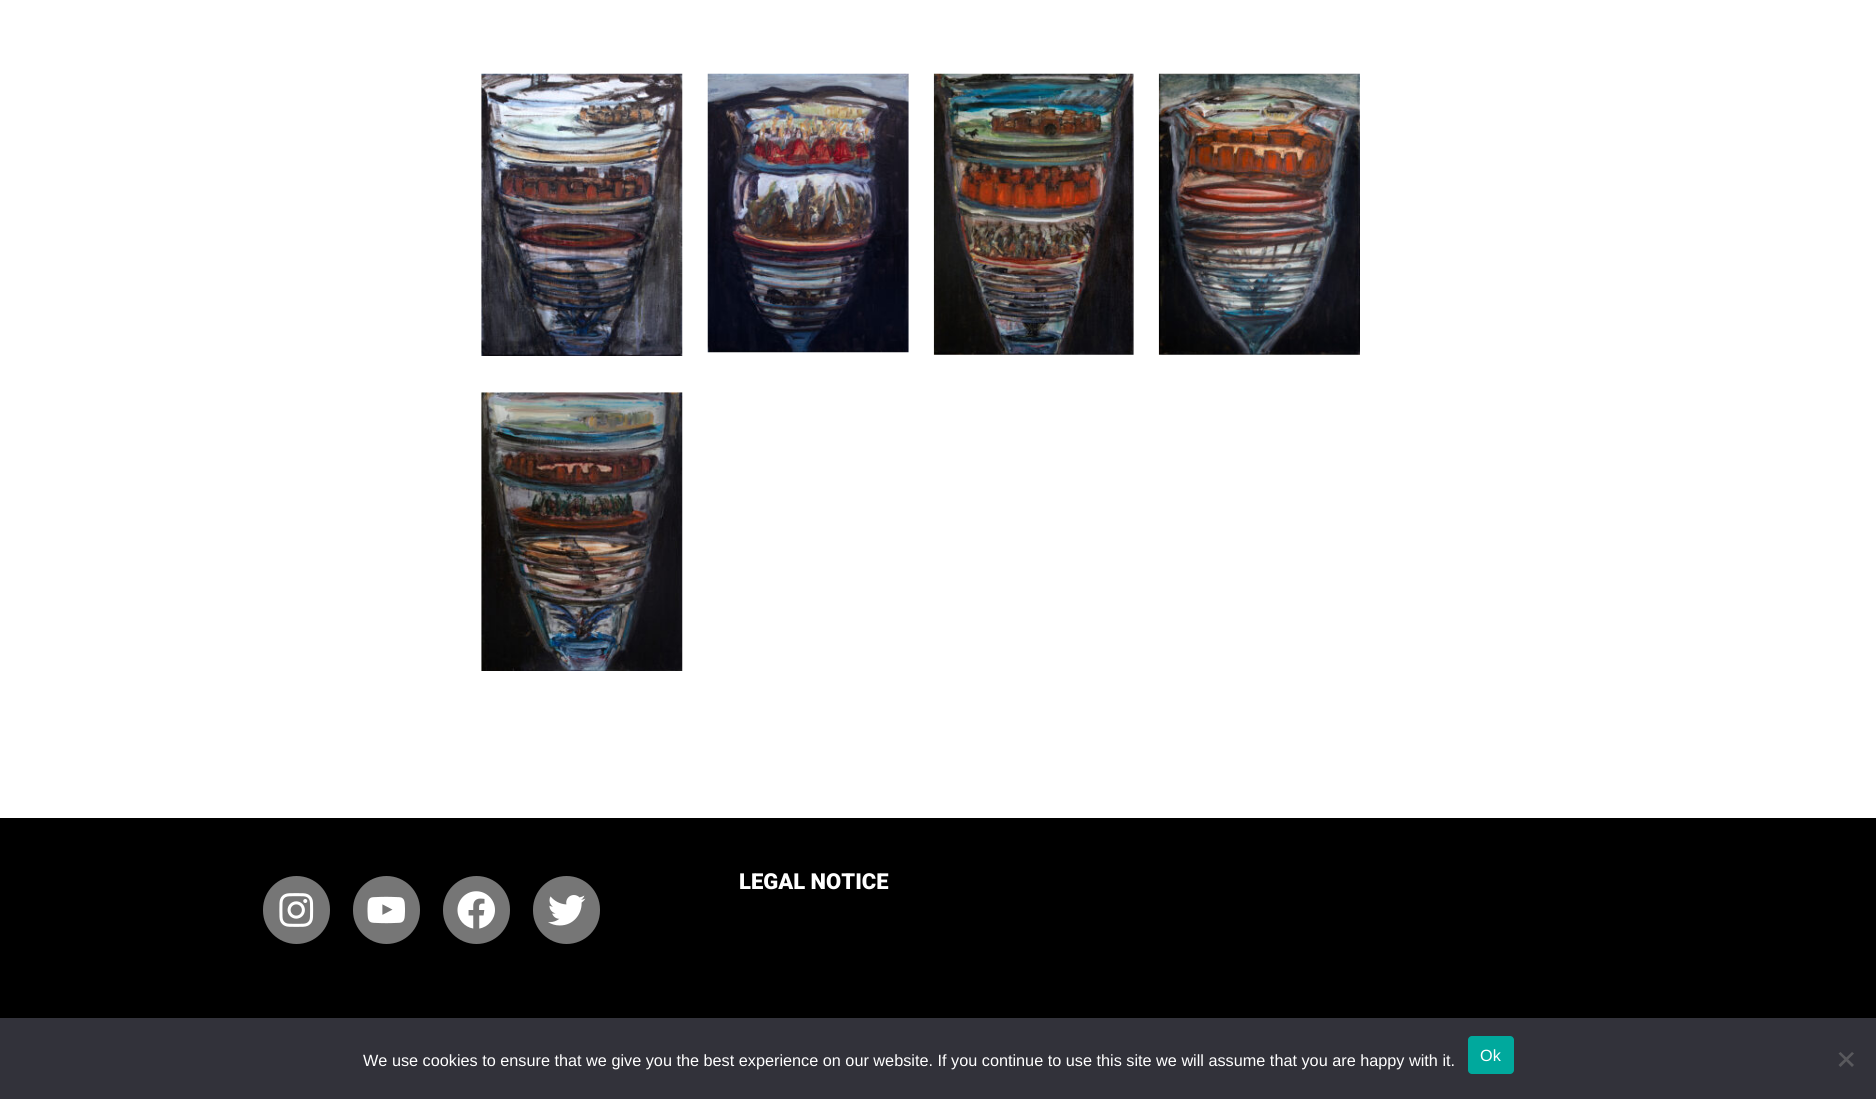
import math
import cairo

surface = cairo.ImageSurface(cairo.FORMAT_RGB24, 1876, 1099)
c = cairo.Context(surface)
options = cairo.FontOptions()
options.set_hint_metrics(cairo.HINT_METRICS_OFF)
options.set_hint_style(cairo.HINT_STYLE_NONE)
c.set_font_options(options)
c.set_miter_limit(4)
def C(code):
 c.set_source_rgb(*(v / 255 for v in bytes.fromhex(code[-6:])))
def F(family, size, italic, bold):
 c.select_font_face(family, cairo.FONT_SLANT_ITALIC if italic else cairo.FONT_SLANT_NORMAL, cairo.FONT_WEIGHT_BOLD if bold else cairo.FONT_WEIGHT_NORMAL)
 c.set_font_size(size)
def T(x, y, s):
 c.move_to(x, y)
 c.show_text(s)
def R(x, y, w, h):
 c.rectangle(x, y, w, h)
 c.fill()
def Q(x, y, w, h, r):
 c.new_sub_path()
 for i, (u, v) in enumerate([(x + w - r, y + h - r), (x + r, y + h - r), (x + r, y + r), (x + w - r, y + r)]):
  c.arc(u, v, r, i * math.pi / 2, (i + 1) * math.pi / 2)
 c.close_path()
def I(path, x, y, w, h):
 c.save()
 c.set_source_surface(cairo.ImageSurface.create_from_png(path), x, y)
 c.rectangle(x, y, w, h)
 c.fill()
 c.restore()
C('ffffff')
c.paint()
I('1.png',481,73,202,283)
I('2.png',707,73,202,280)
I('3.png',933,73,201,282)
I('4.png',1158,73,202,282)
I('5.png',481,392,202,279)
C('000000')
R(0,818,1876,200)
C('767676')
Q(263,876,67,68,33.5)
c.fill()
I('6.png',279,893,35,34)
Q(353,876,67,68,33.5)
c.fill()
I('7.png',367,896,38,28)
Q(443,876,67,68,33.5)
c.fill()
I('8.png',457,891,38,38)
Q(533,876,67,68,33.5)
c.fill()
I('9.png',548,895,38,31)
F('Roboto Black',22,0,0)
C('ffffff')
T(739,889,'LEGAL NOTICE')
C('32323a')
R(0,1018,1876,81)
F('Liberation Sans',16.25,0,0)
C('ffffff')
T(363,1066,'We use cookies to ensure that we give you the best experience on our website. If you continue to use this site we will assume that you are happy with it.')
C('00a99d')
Q(1468,1036,46,38,4)
c.fill()
C('ffffff')
T(1480,1061,'Ok')
C('59595d')
c.new_path()
c.move_to(1852,1052)
c.line_to(1854,1053.5)
c.line_to(1840.5,1067)
c.line_to(1838.5,1065)
c.close_path()
c.fill()
c.new_path()
c.move_to(1838.5,1053.5)
c.line_to(1840.5,1052)
c.line_to(1854,1065)
c.line_to(1852,1067)
c.close_path()
c.fill()
surface.write_to_png('o.png')
